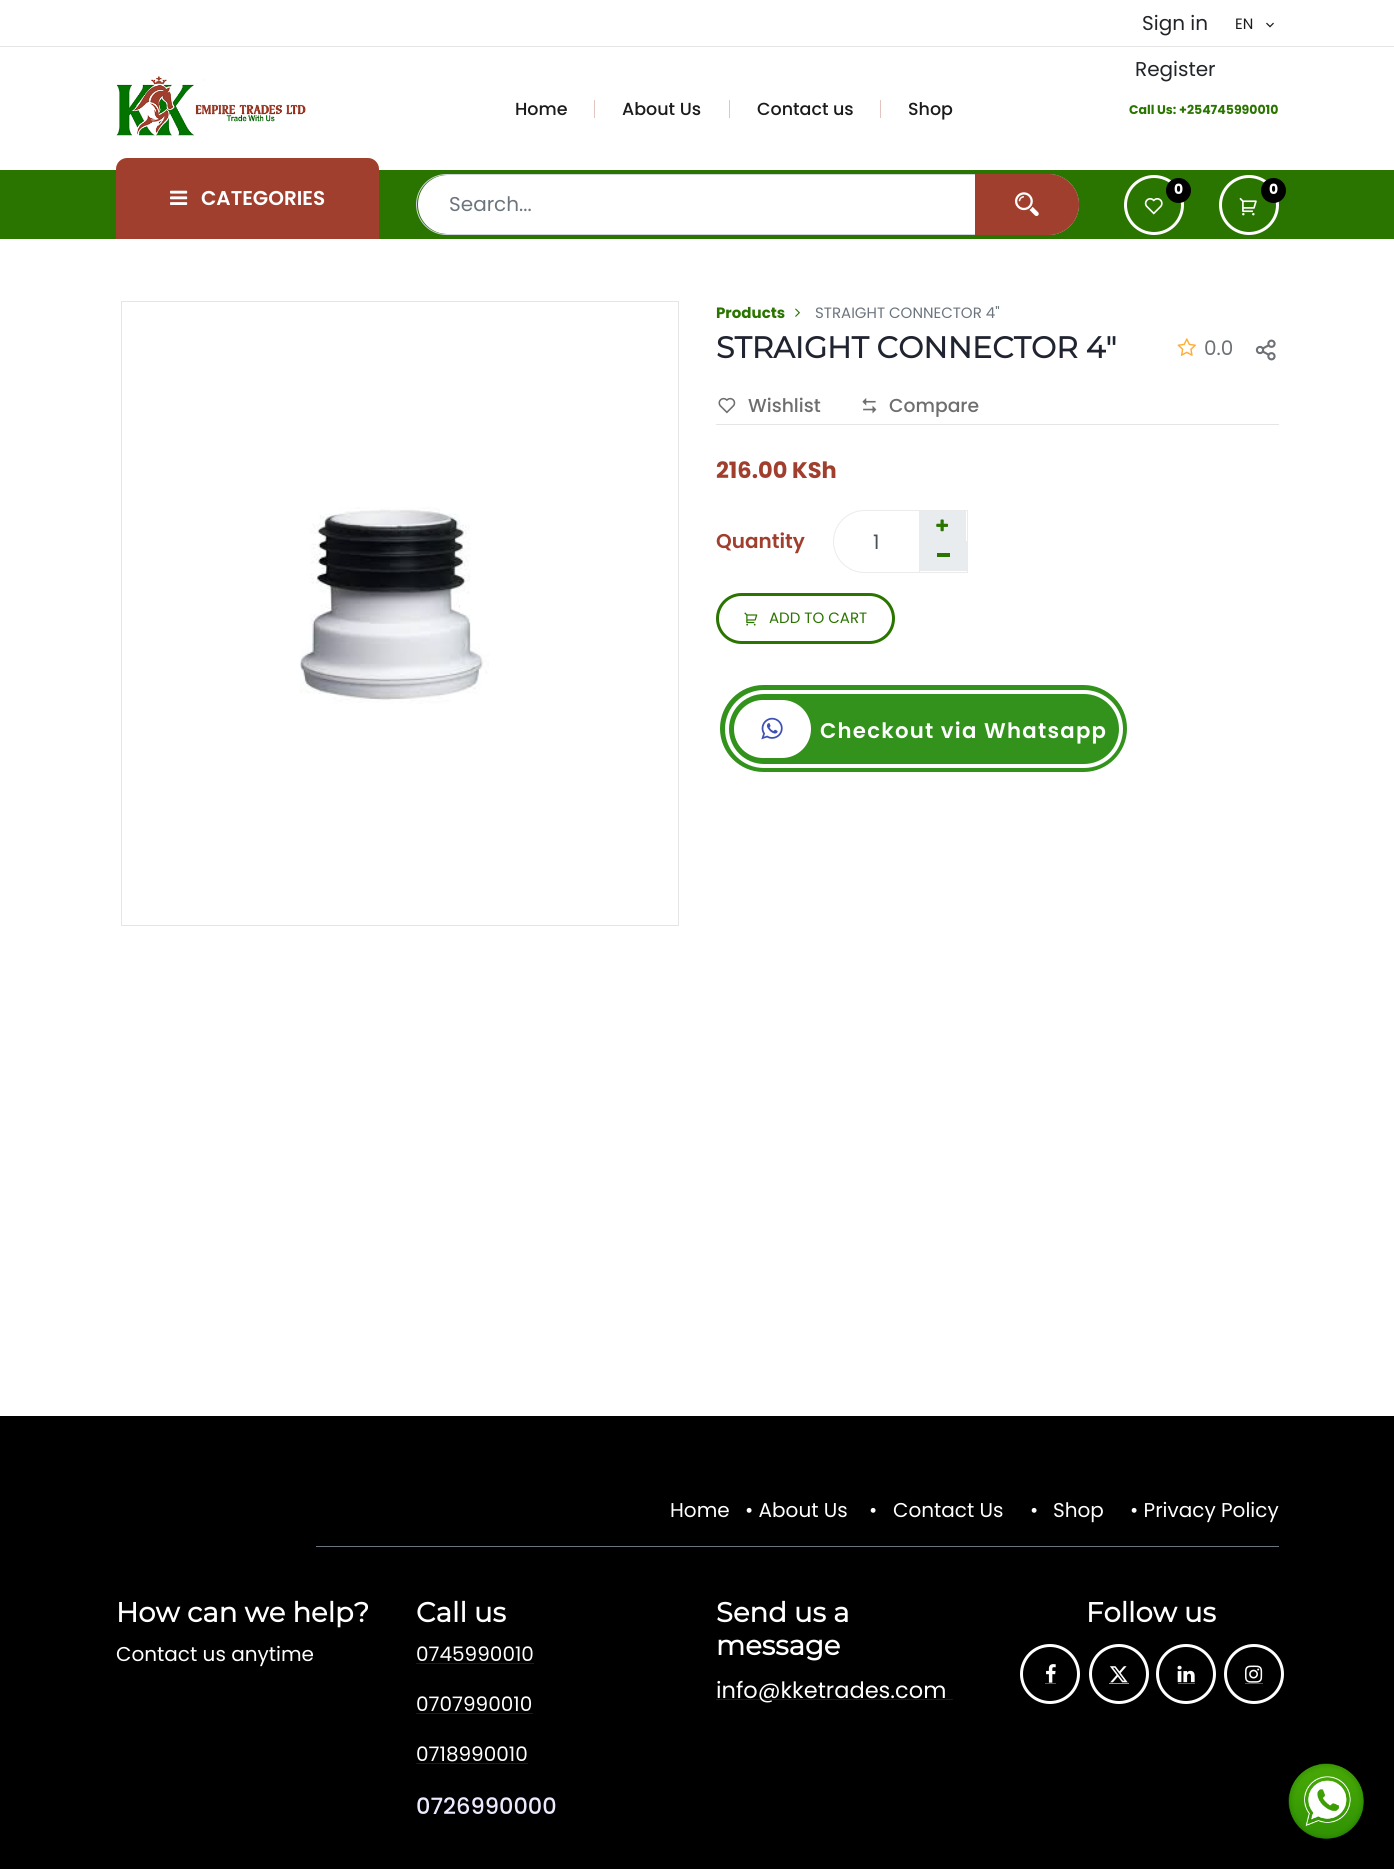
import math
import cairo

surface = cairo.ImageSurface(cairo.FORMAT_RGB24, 1394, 1869)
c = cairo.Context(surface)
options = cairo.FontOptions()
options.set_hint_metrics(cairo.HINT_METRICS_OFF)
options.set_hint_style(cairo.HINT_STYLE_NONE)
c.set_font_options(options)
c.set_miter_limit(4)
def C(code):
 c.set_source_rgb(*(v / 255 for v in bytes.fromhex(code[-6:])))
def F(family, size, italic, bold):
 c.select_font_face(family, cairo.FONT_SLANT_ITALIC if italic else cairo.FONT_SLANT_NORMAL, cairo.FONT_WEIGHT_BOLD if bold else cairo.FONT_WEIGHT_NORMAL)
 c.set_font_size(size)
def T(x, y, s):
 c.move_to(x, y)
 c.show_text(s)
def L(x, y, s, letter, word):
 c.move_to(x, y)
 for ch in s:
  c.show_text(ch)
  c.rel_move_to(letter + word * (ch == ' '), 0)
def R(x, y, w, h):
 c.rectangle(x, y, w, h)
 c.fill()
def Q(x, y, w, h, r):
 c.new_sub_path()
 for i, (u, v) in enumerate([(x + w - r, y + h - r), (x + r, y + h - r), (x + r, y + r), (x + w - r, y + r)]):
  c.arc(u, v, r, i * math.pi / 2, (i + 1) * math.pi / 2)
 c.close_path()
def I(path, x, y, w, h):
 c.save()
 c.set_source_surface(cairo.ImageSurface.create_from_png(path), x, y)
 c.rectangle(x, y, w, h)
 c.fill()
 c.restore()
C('ffffff')
c.paint()
C('e5e5e5')
R(0,46,1394,1)
F('Poppins',20,0,0)
C('212529')
T(1142,30,'Sign in')
T(1135,76,'Register')
F('Poppins',15,0,0)
C('1b1b1b')
T(1235,29,'EN')
I('1.png',1266,22,8,6)
I('2.png',116,76,190,60)
C('e3c5c0')
R(594,100,1,18)
F('Poppins Medium',17.5,0,0)
C('1b1b1b')
T(515,115,'Home')
C('e3c5c0')
R(729,100,1,18)
C('1b1b1b')
T(622,115,'About Us')
C('e3c5c0')
R(880,100,1,18)
C('1b1b1b')
T(757,115,'Contact us')
T(908,115,'Shop')
F('Poppins',12.5,0,1)
C('2a7400')
T(1129,114,'Call Us: +254745990010')
R(0,170,1394,69)
c.new_path()
c.arc(1154,205,28.5,0,2 * math.pi)
C('ffffff')
c.set_line_width(3)
c.stroke()
C('000000')
c.arc(1178.5,190.5,12.5,0,2 * math.pi)
c.fill()
F('Poppins',14,0,1)
C('ffffff')
T(1174,194,'0')
I('3.png',1144,198,19,17)
c.arc(1249,205,28.5,0,2 * math.pi)
c.stroke()
C('000000')
c.arc(1273.5,190.5,12.5,0,2 * math.pi)
c.fill()
C('ffffff')
T(1269,194,'0')
I('4.png',1239,197,18,19)
C('a03f2d')
c.new_path()
c.move_to(127,158)
c.line_to(368,158)
c.curve_to(374,158,379,163,379,169)
c.line_to(379,239)
c.line_to(116,239)
c.line_to(116,169)
c.curve_to(116,163,121,158,127,158)
c.close_path()
c.fill()
I('5.png',170,190,18,15)
F('Poppins SemiBold',20,0,0)
C('ffffff')
T(201,205,'CATEGORIES')
Q(418,175,660,59,29.5)
c.fill()
Q(416.5,174.5,662,60,30)
C('ced4da')
c.set_line_width(1)
c.stroke()
F('Poppins',20,0,0)
C('6c757d')
T(449,211,'Search...')
C('a03f2d')
c.new_path()
c.move_to(975.5,174.5)
c.line_to(1048.5,174.5)
c.curve_to(1065,174.5,1078.5,188,1078.5,204.5)
c.curve_to(1078.5,221,1065,234.5,1048.5,234.5)
c.line_to(975.5,234.5)
c.close_path()
c.fill_preserve()
c.stroke()
I('6.png',1015,192,24,24)
c.rectangle(121.5,301.5,557,624)
C('e5e5e5')
c.stroke()
I('7.png',300,507,189,197)
F('Poppins',15,0,1)
C('2a7400')
T(716,318,'Products')
I('8.png',795,308,5,9)
F('Poppins',15,0,0)
C('6c757d')
T(815,318,'STRAIGHT CONNECTOR 4"')
F('Montserrat',30,0,1)
C('202430')
T(716,358,'STRAIGHT CONNECTOR 4"')
I('9.png',1177,338,19,18)
F('Poppins',20,0,0)
C('6d7175')
T(1204,355,'0.0')
I('10.png',1255,339,21,22)
I('11.png',718,397,18,17)
F('Poppins Medium',18.75,0,0)
C('6e6e6e')
T(748,412,'Wishlist')
I('12.png',862,398,15,16)
T(889,412,'Compare')
C('e5e5e5')
R(716,424,563,1)
F('Poppins',22.5,0,1)
C('a03f2d')
T(716,478,'216.00 KSh')
F('Poppins SemiBold',20,0,0)
T(716,548,'Quantity')
c.new_path()
c.move_to(864.5,510.5)
c.line_to(919.5,510.5)
c.line_to(919.5,572.5)
c.line_to(864.5,572.5)
c.curve_to(847.5,572.5,833.5,558.5,833.5,541.5)
c.curve_to(833.5,524.5,847.5,510.5,864.5,510.5)
c.close_path()
C('ebebeb')
c.stroke()
F('Poppins',20,0,0)
C('495057')
T(873,549,'1')
c.rectangle(919.5,510.5,48,62)
C('ebebeb')
c.stroke()
C('e9ecef')
R(919,511,47,30)
I('13.png',936,519,13,13)
R(920,541,48,30)
C('2a7400')
R(937,553,13,4)
Q(717.5,594.5,176,48,24)
c.set_line_width(3)
c.stroke()
I('14.png',744,612,14,14)
F('Poppins',15,0,0)
T(769,623,'ADD TO CART')
C('32921c')
Q(718,683,411,91,45.5)
c.fill_preserve()
C('ffffff')
c.set_line_width(4)
c.stroke()
Q(727,692,394,74,37)
c.stroke()
Q(734,700,77,58,29)
c.fill()
I('15.png',761,717,22,23)
F('Poppins SemiBold',21.25,0,0)
L(820,738,'Checkout via Whatsapp',1.25,0)
C('000000')
R(0,1416,1394,453)
F('Poppins',20,0,0)
C('ffffff')
T(670,1517,'Home')
T(745,1517,'• About Us')
T(869,1517,'•')
T(893,1517,'Contact Us')
T(1030,1517,'•')
T(1053,1517,'Shop')
T(1130,1517,'• Privacy Policy')
C('6c757d')
R(316,1546,963,1)
F('Montserrat',27.5,0,1)
C('ffffff')
T(116,1622,'How can we help?')
F('Poppins',20,0,0)
T(116,1661,'Contact us anytime')
F('Montserrat',27.5,0,1)
T(416,1622,'Call us')
F('Poppins',20,0,0)
T(416,1661,'0745990010')
C('0e2800')
R(416,1663,118,1)
C('ffffff')
T(416,1711,'0707990010')
C('0e2800')
R(416,1713,117,1)
C('ffffff')
T(416,1761,'0718990010')
C('0e2800')
R(416,1763,112,1)
F('Poppins Medium',22.5,0,0)
C('eee9ff')
T(416,1814,'0726990000')
F('Montserrat',27.5,0,1)
C('ffffff')
T(716,1622,'Send us a')
T(716,1655,'message')
C('0e2800')
R(716,1699,237,1)
F('Poppins',22.5,0,0)
C('ffffff')
T(716,1698,'info@kketrades.com')
F('Montserrat',27.5,0,1)
T(1086,1622,'Follow us')
c.new_path()
c.arc(1050,1674,28.5,0,2 * math.pi)
c.set_line_width(3)
c.stroke()
C('3b5999')
R(1045,1683,11,1)
I('16.png',1046,1664,10,19)
c.arc(1119,1674,28.5,0,2 * math.pi)
C('ffffff')
c.stroke()
C('55acee')
R(1109,1683,20,1)
I('17.png',1110,1666,18,17)
c.arc(1186,1674,28.5,0,2 * math.pi)
C('ffffff')
c.stroke()
C('0077b5')
R(1178,1683,17,1)
I('18.png',1177,1665,18,18)
c.arc(1254,1674,28.5,0,2 * math.pi)
C('ffffff')
c.stroke()
C('c8232c')
R(1245,1683,18,1)
I('19.png',1245,1665,18,18)
I('20.png',1288,1763,76,76)
surface.write_to_png('o.png')
